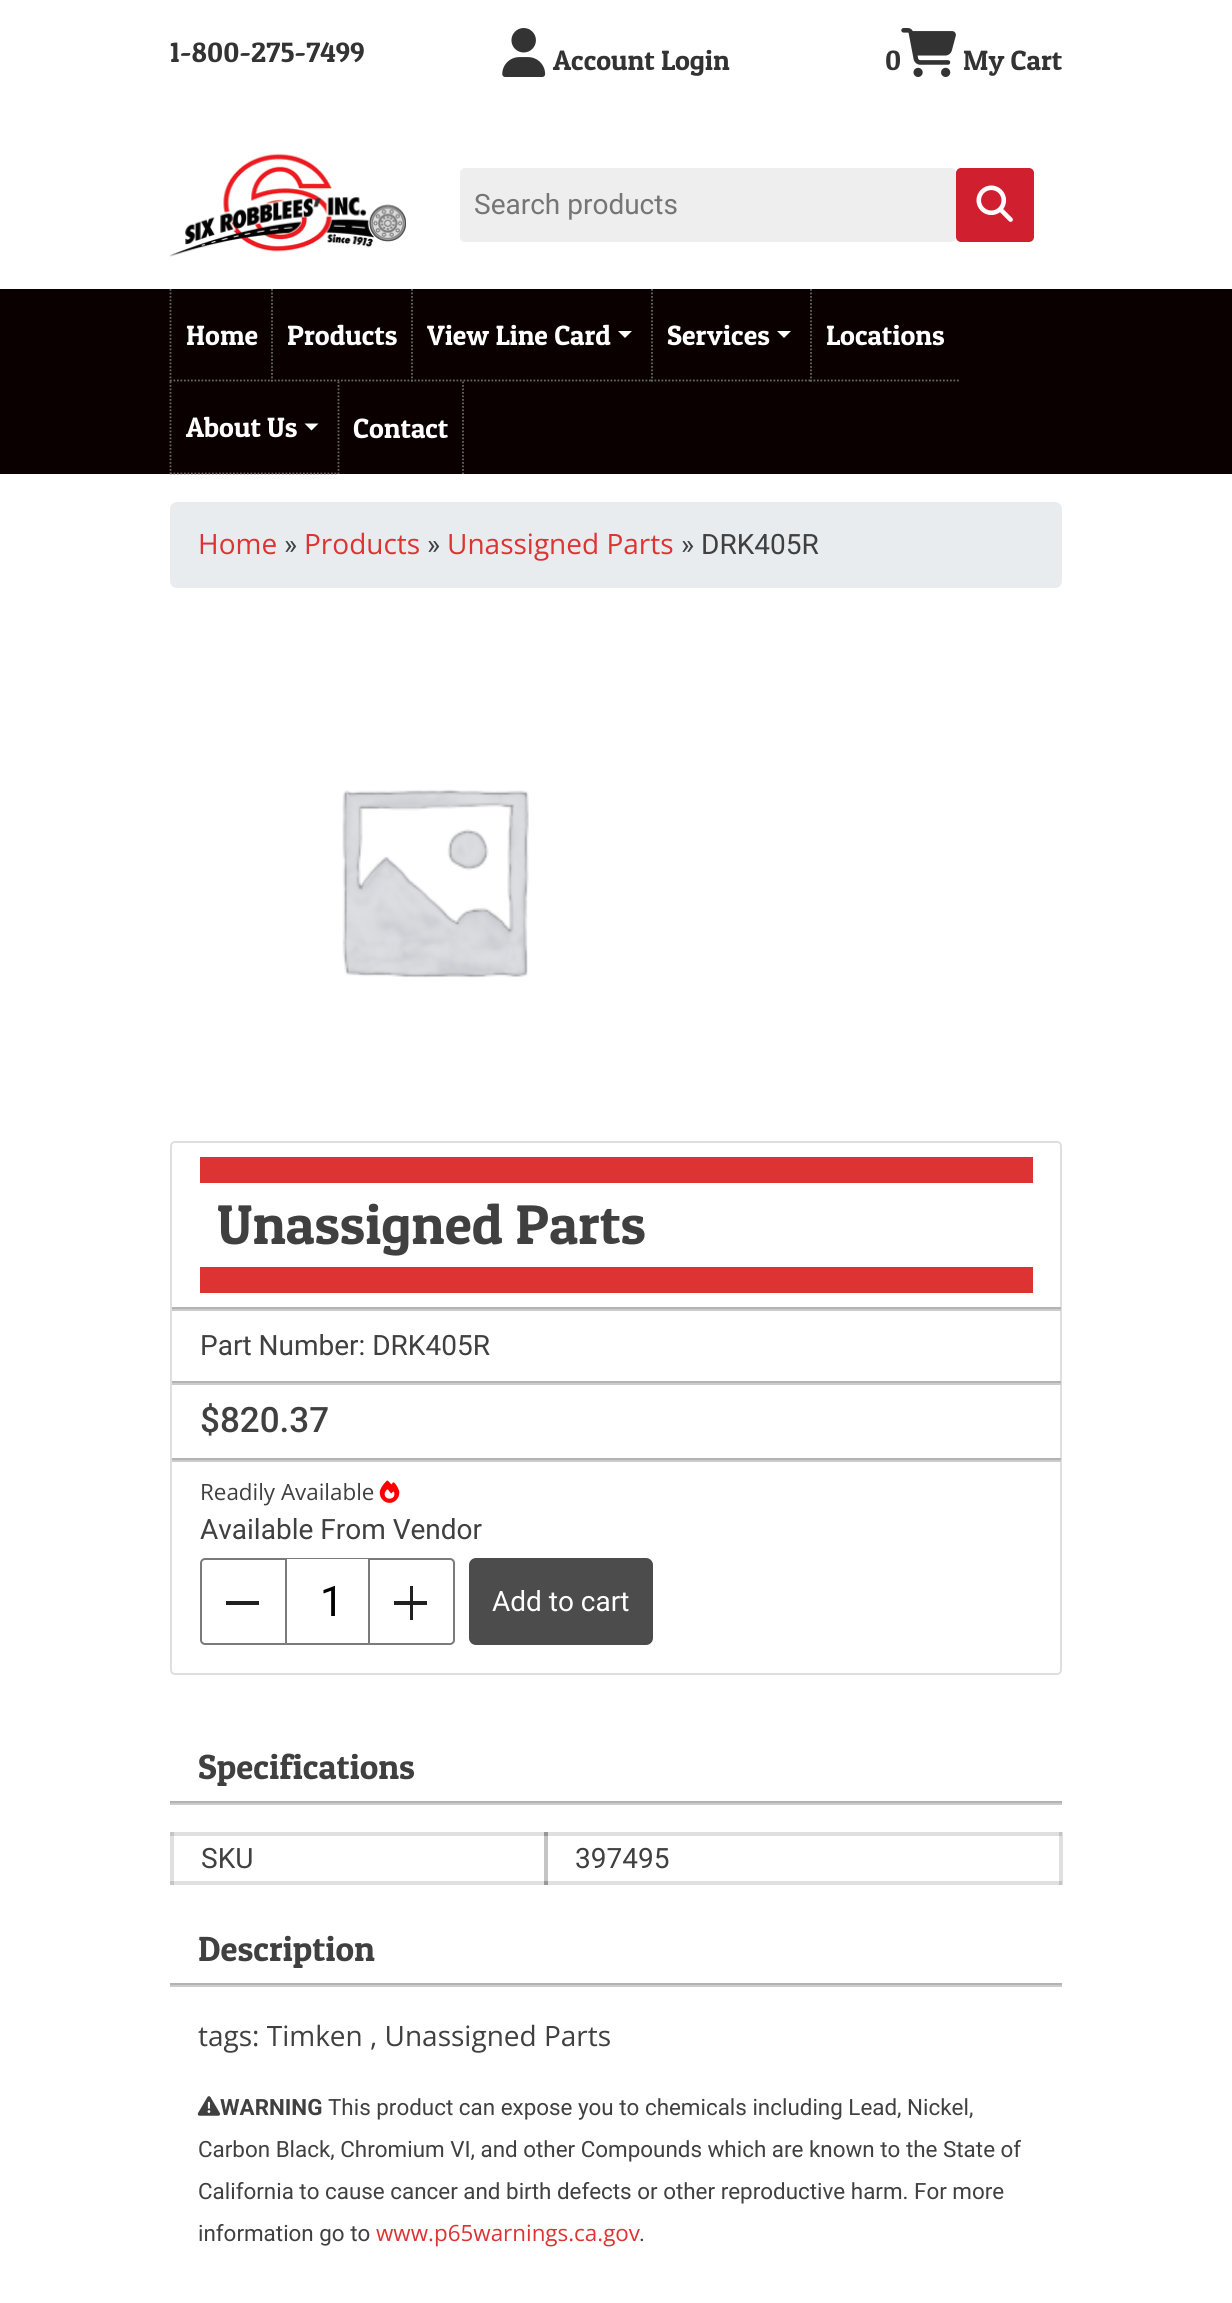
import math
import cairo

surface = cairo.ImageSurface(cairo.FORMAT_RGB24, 1232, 2303)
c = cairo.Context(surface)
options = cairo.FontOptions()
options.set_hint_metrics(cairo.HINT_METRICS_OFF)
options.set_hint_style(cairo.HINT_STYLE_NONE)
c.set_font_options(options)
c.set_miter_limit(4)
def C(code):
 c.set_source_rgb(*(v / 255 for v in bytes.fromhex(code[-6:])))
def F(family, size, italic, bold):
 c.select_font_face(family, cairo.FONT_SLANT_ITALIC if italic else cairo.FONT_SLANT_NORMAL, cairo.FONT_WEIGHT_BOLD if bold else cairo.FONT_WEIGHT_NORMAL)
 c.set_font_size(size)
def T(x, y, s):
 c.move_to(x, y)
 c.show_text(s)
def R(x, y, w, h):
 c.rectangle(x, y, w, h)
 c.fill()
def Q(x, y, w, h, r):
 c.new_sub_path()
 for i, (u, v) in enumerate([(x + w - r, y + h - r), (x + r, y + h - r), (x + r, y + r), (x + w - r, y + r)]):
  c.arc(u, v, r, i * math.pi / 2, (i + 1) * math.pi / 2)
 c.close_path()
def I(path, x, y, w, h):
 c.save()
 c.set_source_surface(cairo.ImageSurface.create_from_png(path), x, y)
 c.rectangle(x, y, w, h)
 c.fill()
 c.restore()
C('ffffff')
c.paint()
C('e0e0e0')
R(170,1832,4,53)
R(170,1881,378,4)
C('c5c5c5')
R(170,1881,4,4)
C('e0e0e0')
R(170,1832,378,4)
C('c5c5c5')
R(170,1832,4,4)
R(544,1832,4,53)
C('e0e0e0')
R(544,1881,518,4)
C('989898')
R(544,1881,4,4)
C('e0e0e0')
R(1059,1832,4,53)
C('c5c5c5')
R(1059,1881,3,4)
F('Patua One',28,0,0)
C('333333')
T(170,62,'1-800-275-7499')
I('1.png',502,28,44,49)
T(553,70,'Account Login')
T(885,70,'0')
I('2.png',901,28,55,49)
T(963,70,'My Cart')
I('3.png',169,153,237,104)
C('eeeeee')
Q(460,168,496,74,5)
c.fill()
F('Roboto',28,0,0)
C('757575')
T(474,214,'Search products')
C('d01f2e')
Q(956,168,78,74,5)
c.fill()
I('4.png',976,185,37,37)
C('0a0000')
R(0,289,1232,185)
c.new_path()
c.move_to(170,380.5)
c.line_to(271,380.5)
C('666666')
c.set_line_width(1.8)
c.set_dash([1.75,1.75])
c.stroke()
c.new_path()
c.move_to(170.5,289)
c.line_to(170.5,381.5)
c.stroke()
F('Patua One',28,0,0)
C('ffffff')
T(186,345,'Home')
c.new_path()
c.move_to(271,380.5)
c.line_to(411,380.5)
C('666666')
c.stroke()
c.new_path()
c.move_to(272,289)
c.line_to(272,381.5)
c.stroke()
C('ffffff')
T(287,345,'Products')
c.new_path()
c.move_to(411,380.5)
c.line_to(651,380.5)
C('666666')
c.stroke()
c.new_path()
c.move_to(412,289)
c.line_to(412,381.5)
c.stroke()
C('ffffff')
T(427,345,'View Line Card')
c.new_path()
c.move_to(618,331)
c.line_to(632,331)
c.line_to(625,338)
c.close_path()
c.fill()
c.new_path()
c.move_to(651,380.5)
c.line_to(810,380.5)
C('666666')
c.stroke()
c.new_path()
c.move_to(652,289)
c.line_to(652,381.5)
c.stroke()
C('ffffff')
T(667,345,'Services')
c.new_path()
c.move_to(777,331)
c.line_to(791,331)
c.line_to(784,338)
c.close_path()
c.fill()
c.new_path()
c.move_to(810,380.5)
c.line_to(959,380.5)
C('666666')
c.stroke()
c.new_path()
c.move_to(811,289)
c.line_to(811,381.5)
c.stroke()
C('ffffff')
T(826,345,'Locations')
c.new_path()
c.move_to(170,473.5)
c.line_to(338,473.5)
C('666666')
c.stroke()
c.new_path()
c.move_to(170.5,381.5)
c.line_to(170.5,474)
c.stroke()
C('ffffff')
T(186,437,'About Us')
c.new_path()
c.move_to(304.5,423.5)
c.line_to(318.5,423.5)
c.line_to(311.5,430.5)
c.close_path()
c.fill()
c.new_path()
c.move_to(463,381.5)
c.line_to(463,474)
C('666666')
c.stroke()
c.new_path()
c.move_to(338.5,381.5)
c.line_to(338.5,474)
c.stroke()
C('ffffff')
T(353,438,'Contact')
C('e9ecef')
Q(170,502,892,86,7)
c.fill()
F('Open Sans',28,0,0)
C('dd3333')
T(198,554,'Home')
F('Roboto',28,0,0)
C('404040')
T(284,554,'»')
F('Open Sans',28,0,0)
C('dd3333')
T(304,554,'Products')
F('Roboto',28,0,0)
C('404040')
T(427,554,'»')
F('Open Sans',28,0,0)
C('dd3333')
T(447,554,'Unassigned Parts')
F('Roboto',28,0,0)
C('404040')
T(681,554,'» DRK405R')
I('5.png',342,789,187,189)
Q(171,1142,890,532,4)
C('dfdfdf')
c.set_line_width(2)
c.set_dash([])
c.stroke()
C('dd3333')
R(200,1157,833,26)
R(200,1267,833,26)
F('Patua One',56,0,0)
C('404040')
T(217,1244,'Unassigned Parts')
C('cccccc')
R(172,1309,889,2)
C('b3b3b3')
R(172,1307,889,2)
F('Roboto',28,0,0)
C('404040')
T(200,1355,'Part Number: DRK405R')
C('cccccc')
R(172,1383,889,2)
C('b3b3b3')
R(172,1381,889,2)
F('Roboto Medium',35,0,0)
C('404040')
T(200,1432,'$820.37')
C('cccccc')
R(172,1460,889,2)
C('b3b3b3')
R(172,1458,889,2)
F('Open Sans',22.4,0,0)
C('404040')
T(200,1500,'Readily Available')
I('6.png',379,1480,21,23)
F('Roboto',28,0,0)
T(200,1539,'Available From Vendor')
Q(201,1559,253,85,4)
C('7b7b7b')
c.stroke()
C('212121')
R(226,1601,33,4)
C('ffffff')
R(287,1559,81,1)
C('7b7b7b')
R(368,1559,2,84)
R(285,1559,2,84)
F('Roboto',42,0,0)
C('000000')
T(320,1616,'1')
C('212121')
R(394,1601,33,4)
R(410,1586,3,34)
C('4c4c4c')
Q(470,1559,182,85,6)
c.fill_preserve()
c.stroke()
F('Roboto',28,0,0)
C('ffffff')
T(492,1611,'Add to cart')
F('Patua One',35,0,0)
C('404040')
T(198,1779,'Specifications')
C('cccccc')
R(170,1803,892,2)
C('b3b3b3')
R(170,1801,892,2)
F('Roboto',28,0,0)
C('404040')
T(201,1868,'SKU')
C('dfdfdf')
R(544,1832,518,4)
C('979797')
R(544,1832,4,4)
C('c4c4c4')
R(1059,1832,3,4)
C('404040')
T(575,1868,'397495')
F('Patua One',35,0,0)
T(198,1961,'Description')
C('cccccc')
R(170,1985,892,2)
C('b3b3b3')
R(170,1983,892,2)
F('Open Sans',28,0,0)
C('404040')
T(198,2046,'tags: Timken , Unassigned Parts')
F('Roboto',22.4,0,1)
T(220,2115,'WARNING')
I('7.png',197,2096,24,20)
F('Roboto',22.4,0,0)
T(328,2115,'This product can expose you to chemicals including Lead, Nickel,')
T(198,2157,'Carbon Black, Chromium VI, and other Compounds which are known to the State of')
T(198,2199,'California to cause cancer and birth defects or other reproductive harm. For more')
T(198,2241,'information go to')
F('Open Sans',22.4,0,0)
C('dd3333')
T(376,2241,'www.p65warnings.ca.gov')
F('Roboto',22.4,0,0)
C('404040')
T(639,2241,'.')
surface.write_to_png('o.png')
